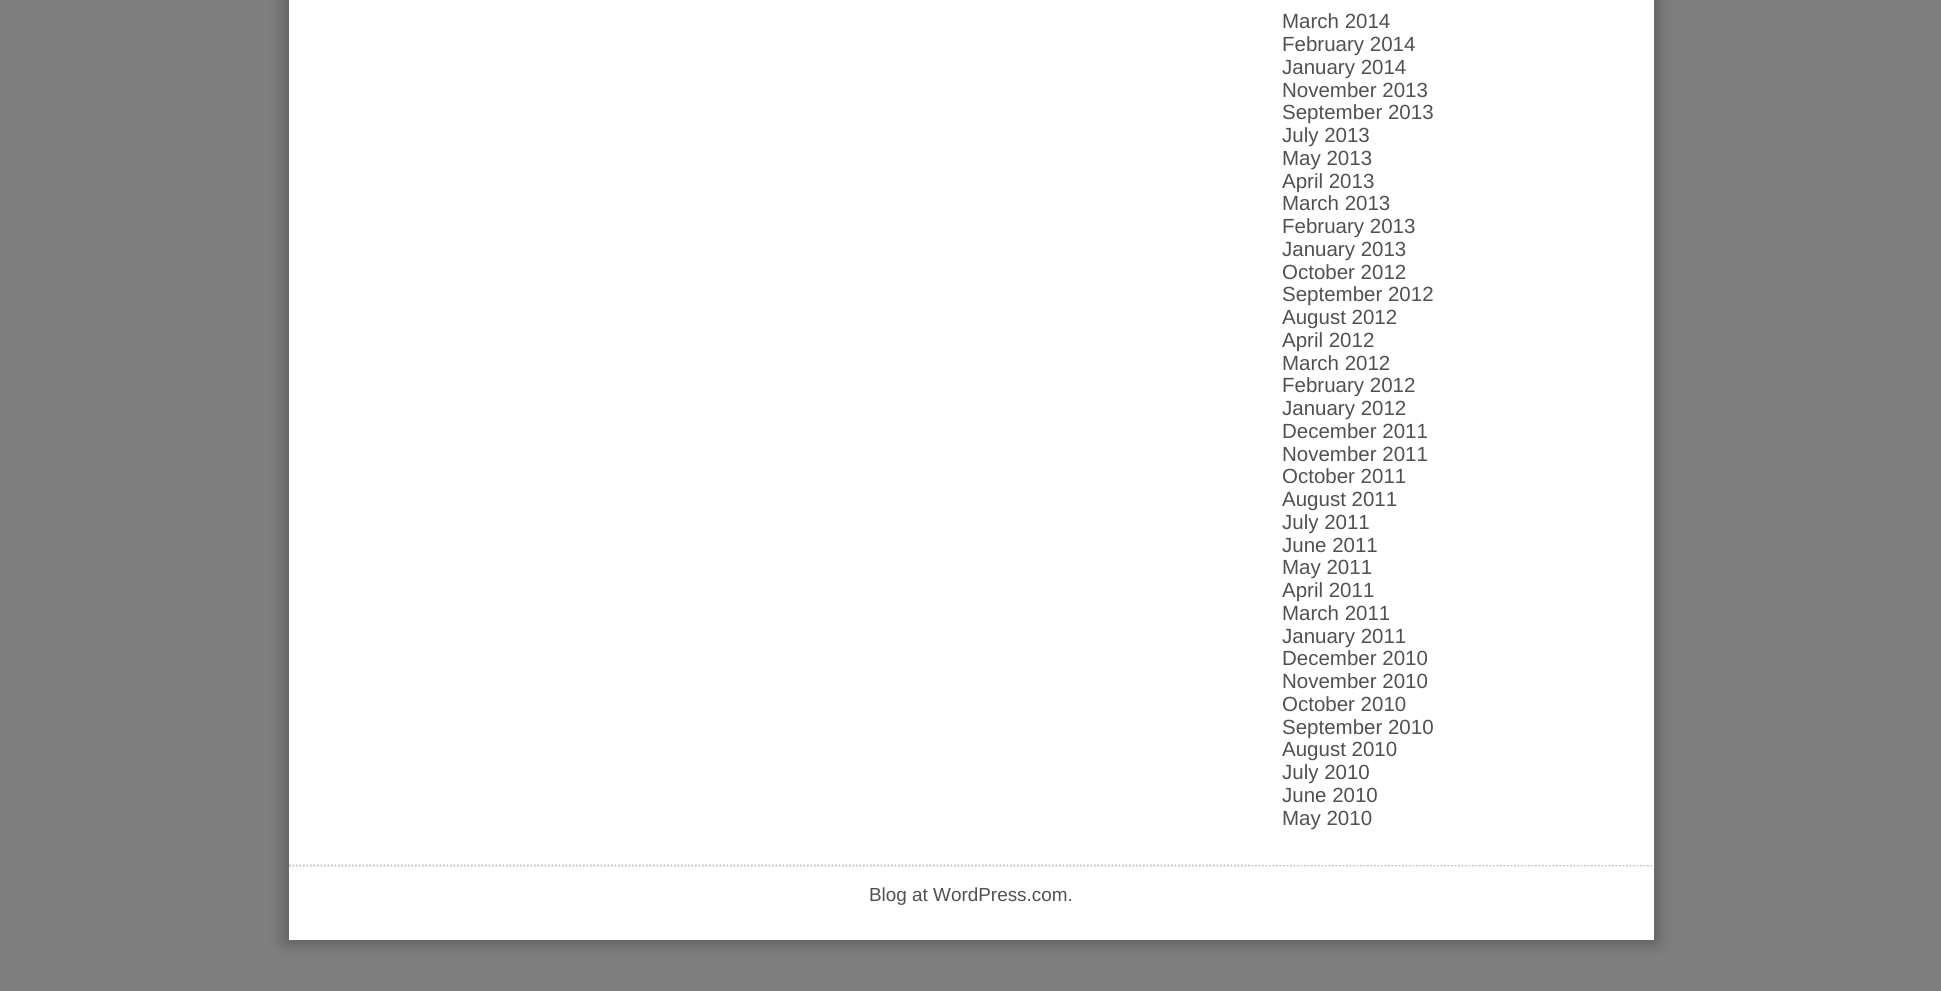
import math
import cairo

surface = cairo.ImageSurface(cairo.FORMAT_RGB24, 1941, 991)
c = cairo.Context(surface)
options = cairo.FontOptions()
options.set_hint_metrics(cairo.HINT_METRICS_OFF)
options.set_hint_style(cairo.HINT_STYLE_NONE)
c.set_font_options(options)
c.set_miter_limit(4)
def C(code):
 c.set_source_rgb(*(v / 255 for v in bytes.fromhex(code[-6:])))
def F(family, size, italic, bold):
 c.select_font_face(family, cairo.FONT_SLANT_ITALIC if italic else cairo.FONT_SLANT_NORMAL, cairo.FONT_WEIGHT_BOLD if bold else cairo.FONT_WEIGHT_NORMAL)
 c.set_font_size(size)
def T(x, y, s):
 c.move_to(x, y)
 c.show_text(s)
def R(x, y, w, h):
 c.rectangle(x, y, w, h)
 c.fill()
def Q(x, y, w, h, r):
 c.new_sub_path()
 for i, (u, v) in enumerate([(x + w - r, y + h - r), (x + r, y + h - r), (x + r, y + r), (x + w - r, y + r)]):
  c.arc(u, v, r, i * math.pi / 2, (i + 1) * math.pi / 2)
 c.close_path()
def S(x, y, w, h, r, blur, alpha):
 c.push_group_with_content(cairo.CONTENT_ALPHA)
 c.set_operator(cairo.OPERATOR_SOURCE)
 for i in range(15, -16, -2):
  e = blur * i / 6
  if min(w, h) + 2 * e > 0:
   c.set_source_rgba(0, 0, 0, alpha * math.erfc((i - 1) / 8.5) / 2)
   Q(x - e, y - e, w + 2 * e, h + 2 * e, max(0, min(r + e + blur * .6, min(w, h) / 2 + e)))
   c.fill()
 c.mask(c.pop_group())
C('7f7f7f')
c.paint()
C('5a5a5a')
S(285,-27,1372,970,0,9,1)
C('ffffff')
R(289,0,962,865)
R(289,865,1365,75)
c.new_path()
c.move_to(289,865.5)
c.line_to(1654,865.5)
C('c0c0c0')
c.set_line_width(1.8)
c.set_dash([1.75,1.75])
c.stroke()
C('ffffff')
R(1251,0,403,865)
F('Liberation Sans',20.5,0,0)
C('515151')
T(1282,28,'March 2014')
T(1282,51,'February 2014')
T(1282,74,'January 2014')
T(1282,97,'November 2013')
T(1282,119,'September 2013')
T(1282,142,'July 2013')
T(1282,165,'May 2013')
T(1282,188,'April 2013')
T(1282,210,'March 2013')
T(1282,233,'February 2013')
T(1282,256,'January 2013')
T(1282,279,'October 2012')
T(1282,301,'September 2012')
T(1282,324,'August 2012')
T(1282,347,'April 2012')
T(1282,370,'March 2012')
T(1282,392,'February 2012')
T(1282,415,'January 2012')
T(1282,438,'December 2011')
T(1282,461,'November 2011')
T(1282,483,'October 2011')
T(1282,506,'August 2011')
T(1282,529,'July 2011')
T(1282,552,'June 2011')
T(1282,574,'May 2011')
T(1282,597,'April 2011')
T(1282,620,'March 2011')
T(1282,643,'January 2011')
T(1282,665,'December 2010')
T(1282,688,'November 2010')
T(1282,711,'October 2010')
T(1282,734,'September 2010')
T(1282,756,'August 2010')
T(1282,779,'July 2010')
T(1282,802,'June 2010')
T(1282,825,'May 2010')
F('Liberation Sans',18.9,0,0)
T(869,901,'Blog at WordPress.com.')
surface.write_to_png('o.png')
